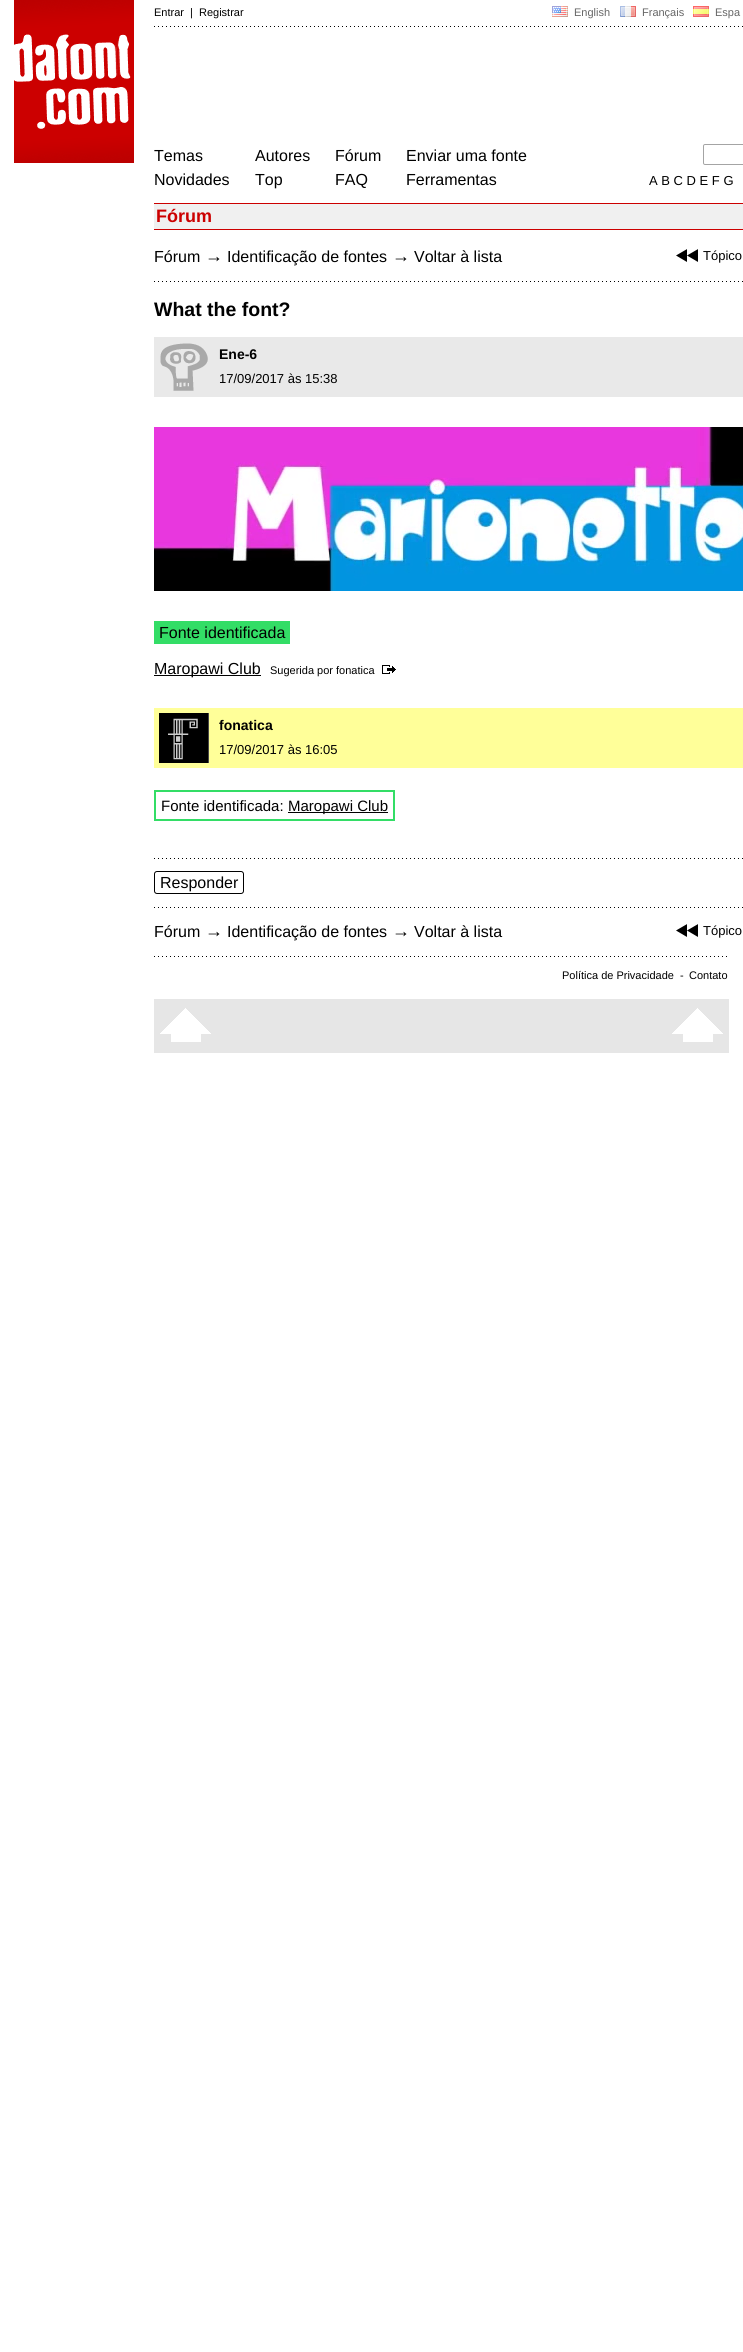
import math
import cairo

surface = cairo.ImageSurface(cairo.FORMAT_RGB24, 743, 2352)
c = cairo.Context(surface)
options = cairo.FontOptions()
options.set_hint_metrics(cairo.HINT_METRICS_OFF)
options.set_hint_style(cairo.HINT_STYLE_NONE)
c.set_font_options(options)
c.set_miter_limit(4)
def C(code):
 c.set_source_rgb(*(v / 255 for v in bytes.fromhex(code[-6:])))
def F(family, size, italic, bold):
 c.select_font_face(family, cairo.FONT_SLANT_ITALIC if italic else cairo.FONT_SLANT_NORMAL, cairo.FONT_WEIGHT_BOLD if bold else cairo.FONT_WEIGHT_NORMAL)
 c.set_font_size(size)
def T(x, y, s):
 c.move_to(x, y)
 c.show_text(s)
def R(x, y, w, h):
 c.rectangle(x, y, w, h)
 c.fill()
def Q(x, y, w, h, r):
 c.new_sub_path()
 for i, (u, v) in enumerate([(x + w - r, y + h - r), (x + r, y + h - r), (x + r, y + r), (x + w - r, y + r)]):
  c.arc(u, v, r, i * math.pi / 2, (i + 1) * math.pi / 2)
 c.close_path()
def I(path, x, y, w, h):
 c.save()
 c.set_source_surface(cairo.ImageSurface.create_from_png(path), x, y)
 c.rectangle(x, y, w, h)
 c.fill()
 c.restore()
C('ffffff')
c.paint()
I('1.png',14,0,120,163)
F('Liberation Sans',11,0,0)
C('000000')
T(154,16,'Entrar')
T(190,16,'|')
T(199,16,'Registrar')
I('2.png',552,6,16,11)
C('666666')
T(574,16,'English')
I('3.png',620,6,16,11)
T(642,16,'Français')
I('4.png',693,6,16,11)
T(715,16,'Espa')
I('5.png',154,26,589,1)
F('Liberation Sans',16,0,0)
C('000000')
T(154,161,'Temas')
T(154,185,'Novidades')
T(255,161,'Autores')
T(255,185,'Top')
T(335,161,'Fórum')
T(335,185,'FAQ')
T(406,161,'Enviar uma fonte')
T(406,185,'Ferramentas')
Q(703.5,144.5,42,20,1.5)
C('a4a4a4')
c.set_line_width(1)
c.stroke()
F('Liberation Sans',13,0,0)
C('000000')
T(649,185,'A B C D E F G')
C('f0f0f0')
R(154,204,589,25)
C('cc0000')
R(154,203,589,1)
R(154,229,589,1)
F('Liberation Sans',18,0,1)
T(156,222,'Fórum')
F('Liberation Sans',16,0,0)
C('000000')
T(154,262,'Fórum')
F('Liberation Sans',18,0,0)
T(205,262,'→')
F('Liberation Sans',16,0,0)
T(227,262,'Identificação de fontes')
F('Liberation Sans',18,0,0)
T(392,262,'→')
F('Liberation Sans',16,0,0)
T(414,262,'Voltar à lista')
I('6.png',676,249,22,13)
F('Liberation Sans',13,0,0)
T(703,260,'Tópico')
I('5.png',154,281,589,1)
F('Liberation Sans',19.5,0,1)
T(154,316,'What the font?')
C('e9e9e9')
R(154,337,589,60)
I('7.png',160,343,48,48)
F('Liberation Sans',14,0,1)
C('000000')
T(219,359,'Ene-6')
F('Liberation Sans',13,0,0)
T(219,383,'17/09/2017 às 15:38')
I('8.png',154,427,589,164)
C('33dd66')
R(154,621,136,23)
F('Liberation Sans',16,0,0)
C('000000')
T(159,638,'Fonte identificada')
R(154,675,107,1)
T(154,674,'Maropawi Club')
F('Liberation Sans',11,0,0)
T(270,674,'Sugerida por fonatica')
I('9.png',382,665,14,9)
C('ffff99')
R(154,708,589,60)
I('10.png',159,713,50,50)
F('Liberation Sans',14,0,1)
C('000000')
T(219,730,'fonatica')
F('Liberation Sans',13,0,0)
T(219,754,'17/09/2017 às 16:05')
c.rectangle(155,791,239,29)
C('33dd66')
c.set_line_width(2)
c.stroke()
F('Liberation Sans',15,0,0)
C('000000')
T(161,811,'Fonte identificada:')
R(288,812,100,1)
T(288,811,'Maropawi Club')
I('5.png',154,858,589,1)
Q(154.5,871.5,89,22,2.5)
c.set_line_width(1)
c.stroke()
F('Liberation Sans',16,0,0)
T(160,888,'Responder')
I('5.png',154,907,589,1)
T(154,937,'Fórum')
F('Liberation Sans',18,0,0)
T(205,937,'→')
F('Liberation Sans',16,0,0)
T(227,937,'Identificação de fontes')
F('Liberation Sans',18,0,0)
T(392,937,'→')
F('Liberation Sans',16,0,0)
T(414,937,'Voltar à lista')
I('6.png',676,924,22,13)
F('Liberation Sans',13,0,0)
T(703,935,'Tópico')
I('11.png',154,956,573,1)
F('Liberation Sans',11,0,0)
T(562,979,'Política de Privacidade')
T(680,979,'-')
T(689,979,'Contato')
C('e6e6e6')
R(154,999,575,54)
I('12.png',160,1008,51,34)
I('12.png',672,1008,51,34)
surface.write_to_png('o.png')
